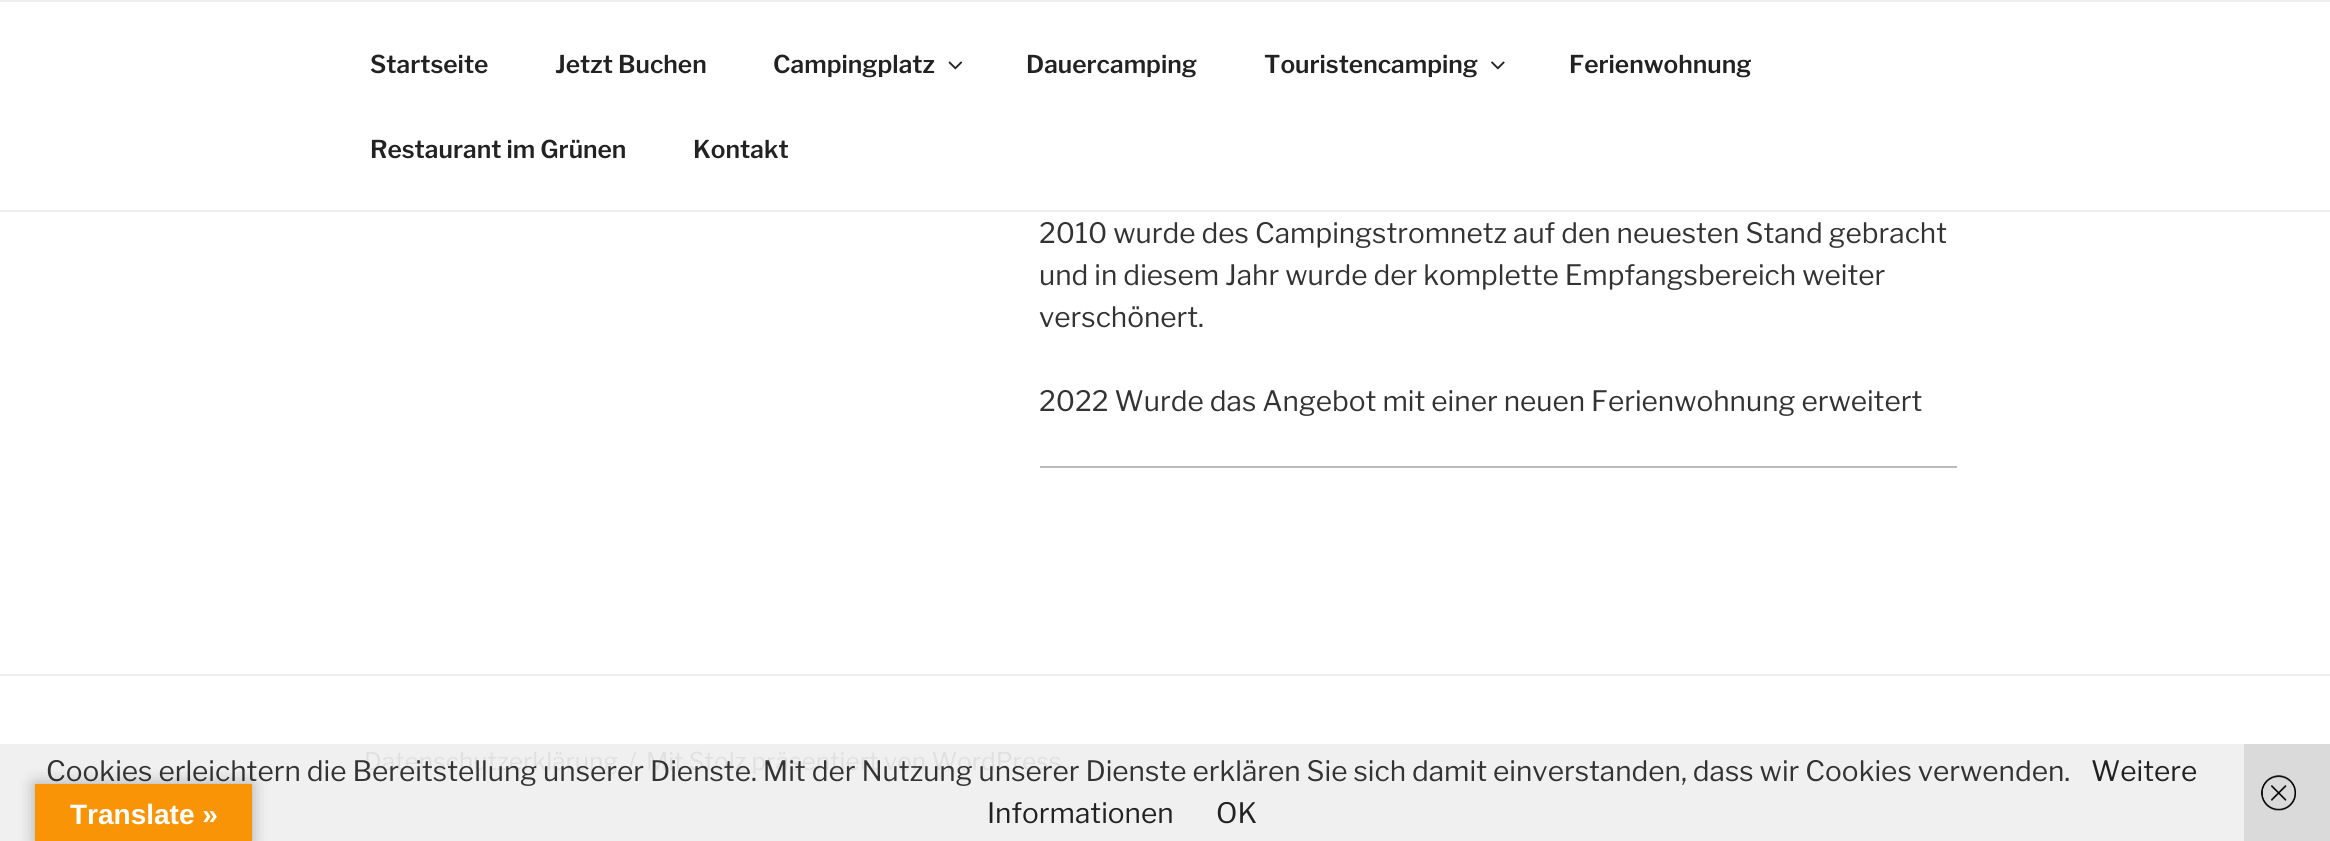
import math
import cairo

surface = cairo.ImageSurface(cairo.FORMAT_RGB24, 2330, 841)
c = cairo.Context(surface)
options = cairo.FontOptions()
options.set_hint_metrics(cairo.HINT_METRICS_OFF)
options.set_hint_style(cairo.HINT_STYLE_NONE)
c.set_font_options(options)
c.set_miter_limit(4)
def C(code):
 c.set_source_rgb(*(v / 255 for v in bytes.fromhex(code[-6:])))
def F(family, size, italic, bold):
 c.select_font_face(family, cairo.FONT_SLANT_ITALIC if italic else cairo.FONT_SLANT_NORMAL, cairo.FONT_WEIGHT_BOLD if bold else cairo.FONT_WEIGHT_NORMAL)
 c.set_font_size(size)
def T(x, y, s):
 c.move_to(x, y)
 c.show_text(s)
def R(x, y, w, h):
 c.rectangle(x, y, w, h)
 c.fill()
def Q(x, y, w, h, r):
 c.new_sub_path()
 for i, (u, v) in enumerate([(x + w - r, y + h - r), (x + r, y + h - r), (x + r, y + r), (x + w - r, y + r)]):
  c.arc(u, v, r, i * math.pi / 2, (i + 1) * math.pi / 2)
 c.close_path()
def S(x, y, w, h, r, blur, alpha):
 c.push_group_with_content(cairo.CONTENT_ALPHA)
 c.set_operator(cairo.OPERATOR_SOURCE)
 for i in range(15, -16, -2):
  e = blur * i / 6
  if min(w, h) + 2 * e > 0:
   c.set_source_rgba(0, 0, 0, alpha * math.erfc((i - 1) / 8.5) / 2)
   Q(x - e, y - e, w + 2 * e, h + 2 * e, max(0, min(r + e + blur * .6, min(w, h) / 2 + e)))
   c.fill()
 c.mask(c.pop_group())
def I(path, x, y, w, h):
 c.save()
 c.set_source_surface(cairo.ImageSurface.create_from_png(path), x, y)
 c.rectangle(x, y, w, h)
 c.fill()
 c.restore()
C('ffffff')
c.paint()
C('f0f0f0')
R(0,744,2244,97)
C('eeeeee')
R(0,0,2330,2)
R(0,210,2330,2)
F('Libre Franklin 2 Thin',24.5,0,0)
C('222222')
T(370,73,'Startseite')
T(555,73,'Jetzt Buchen')
T(773,73,'Campingplatz')
I('1.png',948,61,15,9)
T(1026,73,'Dauercamping')
T(1264,73,'Touristencamping')
I('2.png',1491,61,14,9)
T(1569,73,'Ferienwohnung')
T(370,158,'Restaurant im Grünen')
T(693,158,'Kontakt')
F('Libre Franklin Thin',28,0,0)
C('333333')
T(1039,243,'2010 wurde des Campingstromnetz auf den neuesten Stand gebracht')
T(1039,285,'und in diesem Jahr wurde der komplette Empfangsbereich weiter')
T(1039,327,'verschönert.')
T(1039,411,'2022 Wurde das Angebot mit einer neuen Ferienwohnung erweitert')
C('bbbbbb')
R(1040,466,917,2)
C('eeeeee')
R(0,674,2330,2)
F('Libre Franklin Thin',24.5,0,0)
C('e0e0e0')
T(364,770,'Datenschutzerklärung')
T(628,770,'/')
T(646,770,'Mit Stolz präsentiert von WordPress')
F('Libre Franklin Thin',28,0,0)
C('333333')
T(46,781,'Cookies erleichtern die Bereitstellung unserer Dienste. Mit der Nutzung unserer Dienste erklären Sie sich damit einverstanden, dass wir Cookies verwenden.')
C('222222')
T(2091,781,'Weitere')
T(987,823,'Informationen')
T(1216,823,'OK')
C('dadada')
R(2244,744,86,97)
I('3.png',2261,775,35,36)
C('000000')
S(35,784,217,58,0,8,.3)
C('f89406')
R(35,784,217,57)
F('Liberation Sans',28,0,1)
C('ffffff')
T(70,824,'Translate »')
surface.write_to_png('o.png')
